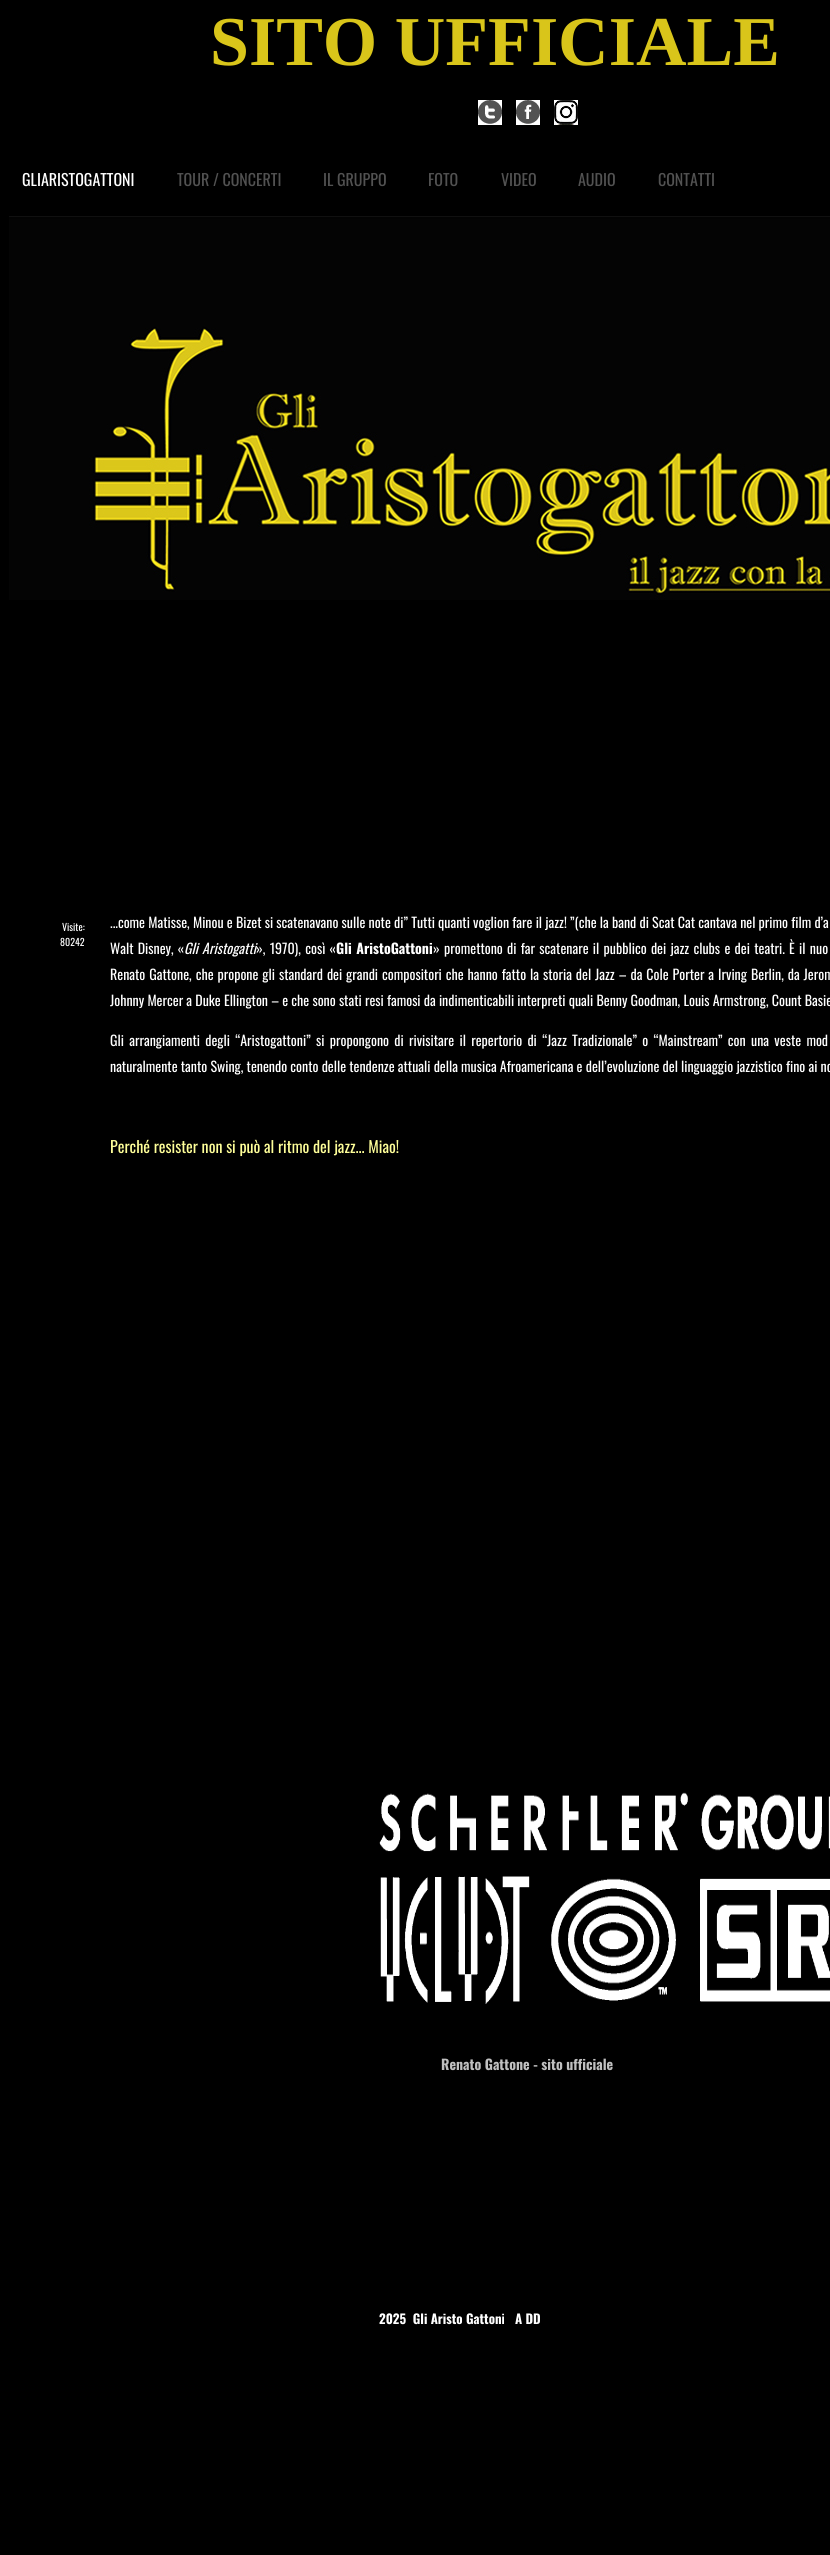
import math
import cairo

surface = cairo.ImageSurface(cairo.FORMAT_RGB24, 830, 2555)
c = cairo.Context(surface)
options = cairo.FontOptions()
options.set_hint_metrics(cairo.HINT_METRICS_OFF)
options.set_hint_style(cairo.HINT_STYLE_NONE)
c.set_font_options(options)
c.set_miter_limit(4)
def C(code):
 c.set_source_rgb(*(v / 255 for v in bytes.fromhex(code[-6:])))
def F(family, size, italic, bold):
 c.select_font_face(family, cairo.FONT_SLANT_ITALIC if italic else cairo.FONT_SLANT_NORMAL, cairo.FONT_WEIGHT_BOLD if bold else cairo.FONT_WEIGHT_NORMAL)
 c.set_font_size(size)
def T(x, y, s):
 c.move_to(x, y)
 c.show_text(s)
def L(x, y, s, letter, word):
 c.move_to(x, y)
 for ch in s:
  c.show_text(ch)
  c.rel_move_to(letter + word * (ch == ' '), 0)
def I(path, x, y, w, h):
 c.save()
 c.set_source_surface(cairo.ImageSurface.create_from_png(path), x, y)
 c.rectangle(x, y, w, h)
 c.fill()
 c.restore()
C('000000')
c.paint()
F('Liberation Serif',70,0,1)
C('d9c51a')
T(210,65,'SITO UFFICIALE')
I('1.png',478,100,24,25)
I('2.png',516,100,24,25)
I('3.png',554,100,24,25)
F('Oswald',16,0,0)
C('ffffff')
T(22,186,'GLIARISTOGATTONI')
C('525252')
T(177,186,'TOUR / CONCERTI')
T(323,186,'IL GRUPPO')
T(428,186,'FOTO')
T(501,186,'VIDEO')
T(578,186,'AUDIO')
T(658,186,'CONTATTI')
I('4.png',9,216,821,384)
F('Oswald',10,0,0)
C('ffffff')
T(62,931,'Visite:')
T(60,946,'80242')
F('Oswald',14,0,0)
T(110,928,'...come Matisse, Minou e Bizet si scatenavano sulle note di” Tutti quanti voglion fare il jazz! ”(che la band di Scat Cat cantava nel primo film d’a')
L(110,954,'Walt Disney, «',0,1)
F('Oswald',14,1,0)
L(184,954,'Gli Aristogatti',0,1)
F('Oswald',14,0,0)
L(256,954,'», 1970), così «',0,1.1)
F('Oswald',14,0,1)
L(336,954,'Gli AristoGattoni',0,1)
F('Oswald',14,0,0)
L(433,954,'» promettono di far scatenare il pubblico dei jazz clubs e dei teatri. È il nuo',0,1.1)
L(110,980,'Renato Gattone, che propone gli standard dei grandi compositori che hanno fatto la storia del Jazz – da Cole Porter a Irving Berlin, da Jerom',0,.75)
T(110,1006,'Johnny Mercer a Duke Ellington – e che sono stati resi famosi da indimenticabili interpreti quali Benny Goodman, Louis Armstrong, Count Basie')
L(110,1046,'Gli arrangiamenti degli “Aristogattoni” si propongono di rivisitare il repertorio di “Jazz Tradizionale” o “Mainstream” con una veste mod',0,2.1)
T(110,1072,'naturalmente tanto Swing, tenendo conto delle tendenze attuali della musica Afroamericana e dell’evoluzione del linguaggio jazzistico fino ai no')
F('Oswald',16,0,0)
C('ffff99')
T(110,1153,'Perché resister non si può al ritmo del jazz... Miao!')
I('5.png',379,1792,451,212)
F('Oswald',14,0,1)
C('c0c0c0')
T(441,2070,'Renato Gattone - sito ufficiale')
F('Oswald',13,0,1)
C('ffffff')
T(379,2324,'2025  Gli Aristo Gattoni')
T(515,2324,'A DD')
surface.write_to_png('o.png')
